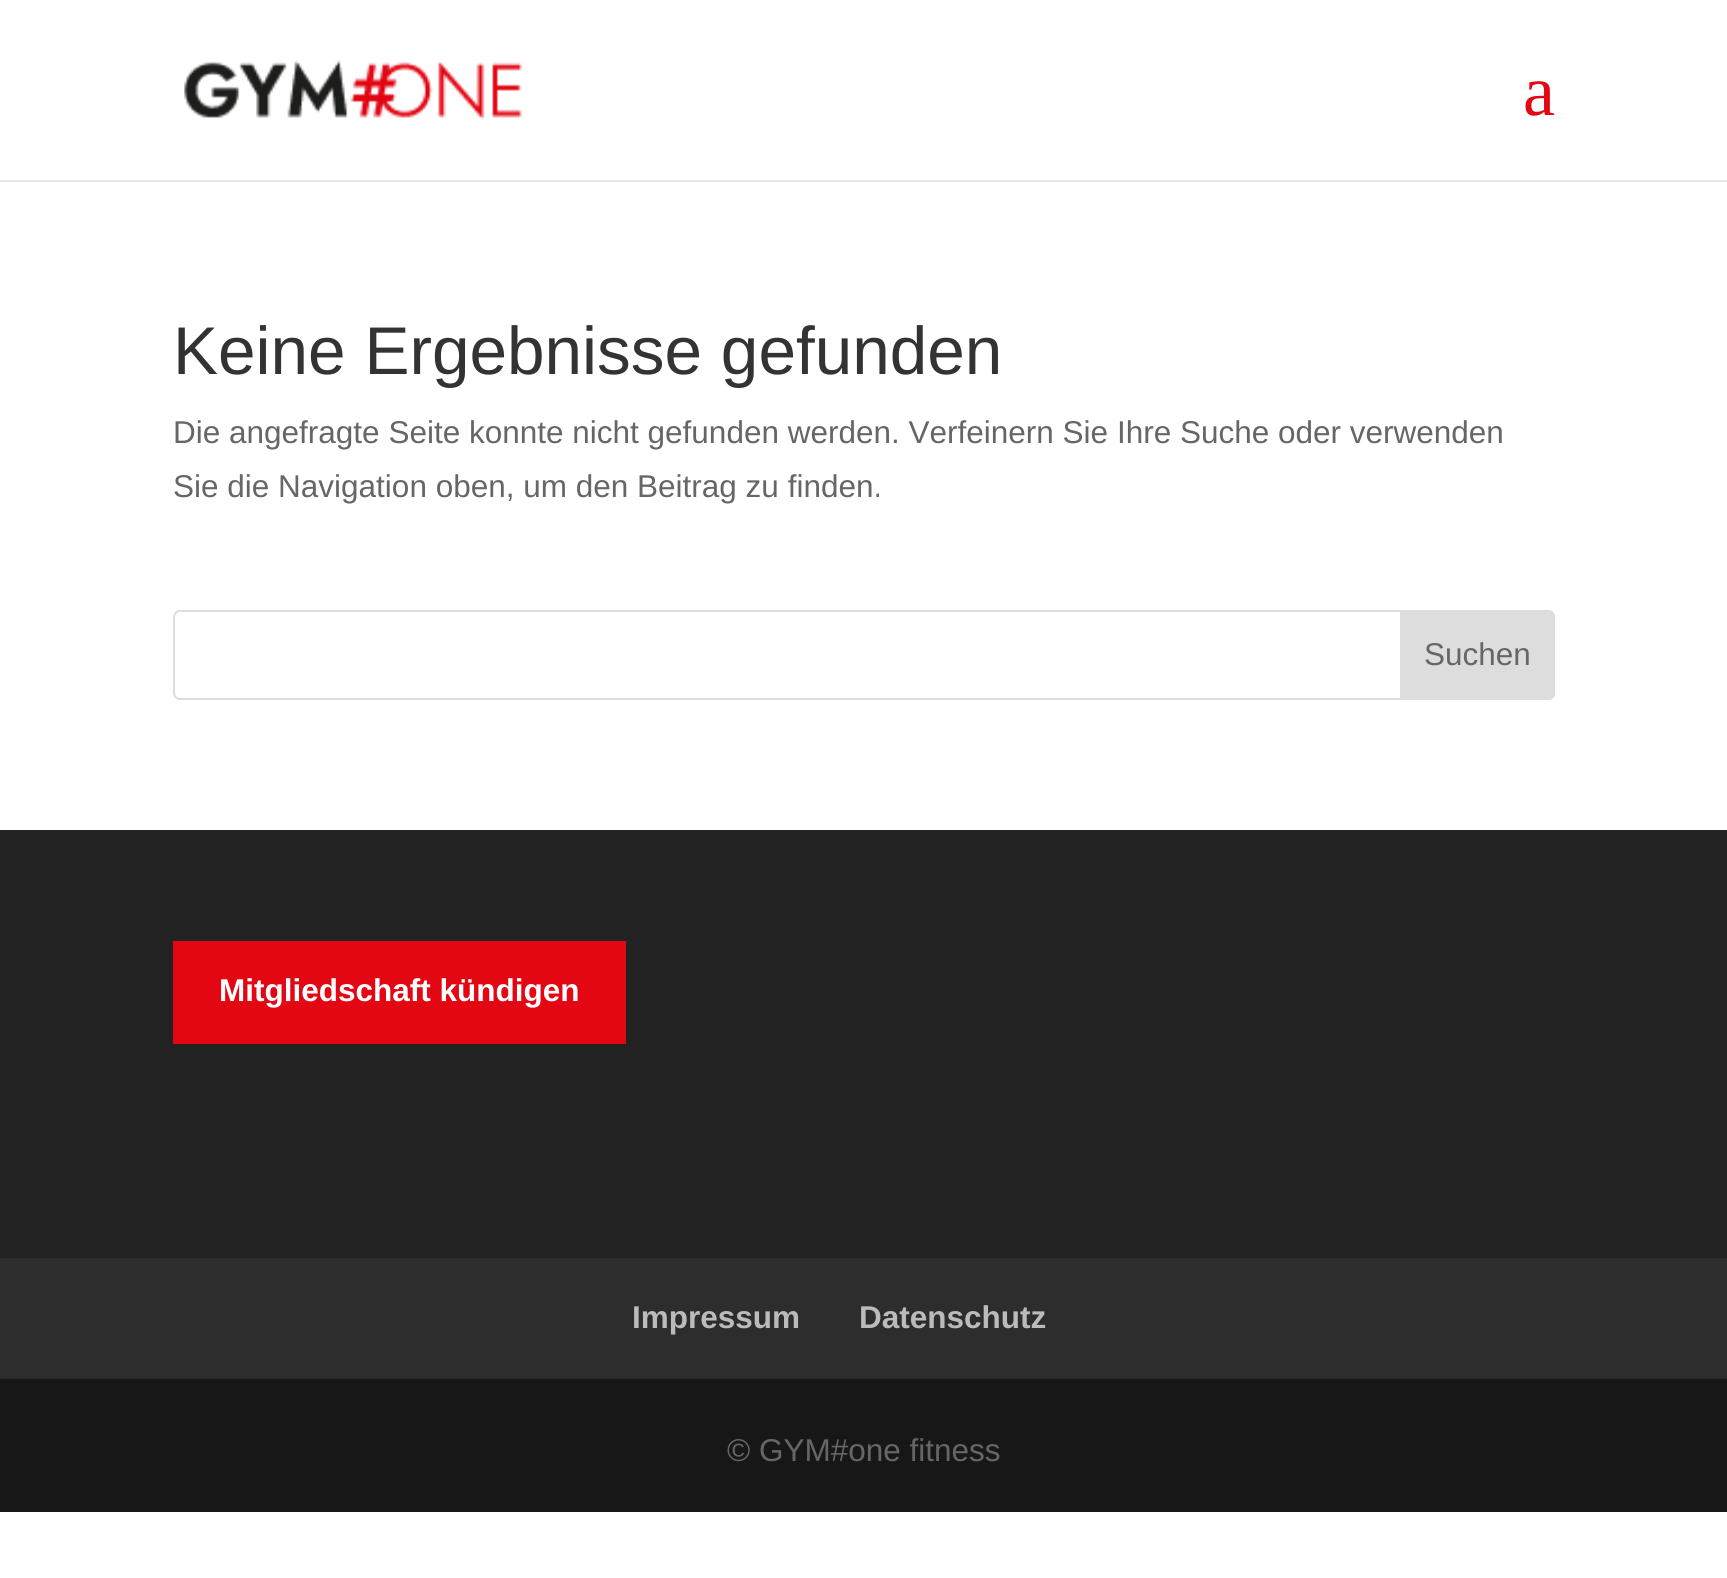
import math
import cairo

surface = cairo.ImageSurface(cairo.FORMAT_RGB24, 1727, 1578)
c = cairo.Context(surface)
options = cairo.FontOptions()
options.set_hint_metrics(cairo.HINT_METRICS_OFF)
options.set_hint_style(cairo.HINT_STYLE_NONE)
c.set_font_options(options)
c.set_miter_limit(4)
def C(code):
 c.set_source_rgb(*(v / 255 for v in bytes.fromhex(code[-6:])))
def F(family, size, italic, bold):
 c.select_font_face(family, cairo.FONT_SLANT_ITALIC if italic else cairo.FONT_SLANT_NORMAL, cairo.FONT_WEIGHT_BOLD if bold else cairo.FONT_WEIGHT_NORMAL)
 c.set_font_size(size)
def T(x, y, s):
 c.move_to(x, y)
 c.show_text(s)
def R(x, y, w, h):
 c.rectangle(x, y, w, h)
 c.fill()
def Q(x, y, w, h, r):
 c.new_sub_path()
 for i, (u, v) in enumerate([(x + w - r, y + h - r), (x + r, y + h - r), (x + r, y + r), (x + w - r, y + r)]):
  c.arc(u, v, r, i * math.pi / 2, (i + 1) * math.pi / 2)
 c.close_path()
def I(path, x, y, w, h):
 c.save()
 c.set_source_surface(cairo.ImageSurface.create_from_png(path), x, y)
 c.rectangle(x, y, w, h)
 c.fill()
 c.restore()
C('ffffff')
c.paint()
C('e6e6e6')
R(0,180,1727,2)
I('1.png',184,60,338,60)
F('Liberation Serif',72,0,0)
C('e30613')
T(1523,115,'a')
F('Liberation Sans',67.5,0,0)
C('333333')
T(173,374,'Keine Ergebnisse gefunden')
F('Liberation Sans',31.5,0,0)
C('666666')
T(173,443,'Die angefragte Seite konnte nicht gefunden werden. Verfeinern Sie Ihre Suche oder verwenden')
T(173,497,'Sie die Navigation oben, um den Beitrag zu finden.')
Q(174,611,1380,88,6)
C('dddddd')
c.stroke()
c.new_path()
c.move_to(1401,611)
c.line_to(1548,611)
c.curve_to(1551.5,611,1554,613.5,1554,617)
c.line_to(1554,693)
c.curve_to(1554,696.5,1551.5,699,1548,699)
c.line_to(1401,699)
c.close_path()
c.fill_preserve()
c.stroke()
C('666666')
T(1424,665,'Suchen')
C('222222')
R(0,830,1727,428)
C('e30613')
R(173,941,453,103)
F('Liberation Sans',31.5,0,1)
C('ffffff')
T(219,1001,'Mitgliedschaft kündigen')
C('2d2d2d')
R(0,1258,1727,121)
C('bbbbbb')
T(632,1328,'Impressum')
T(859,1328,'Datenschutz')
C('171717')
R(0,1379,1727,133)
F('Liberation Sans',31.5,0,0)
C('666666')
T(727,1461,'© GYM#one fitness')
surface.write_to_png('o.png')
